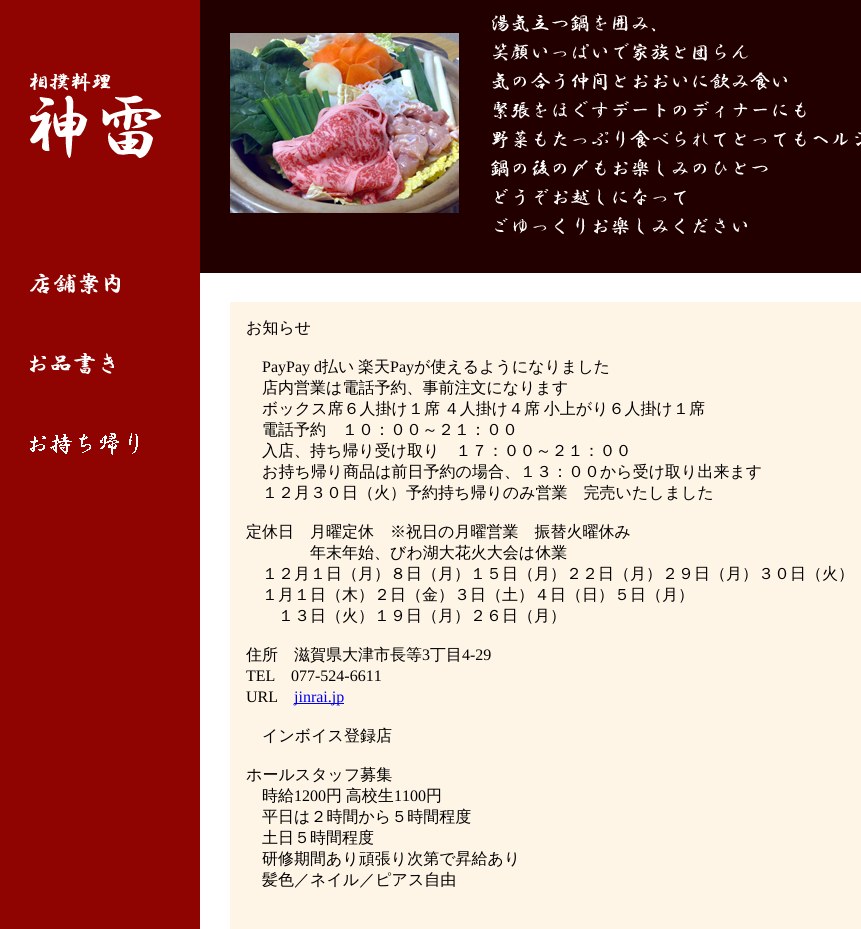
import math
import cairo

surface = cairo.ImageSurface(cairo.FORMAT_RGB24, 861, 929)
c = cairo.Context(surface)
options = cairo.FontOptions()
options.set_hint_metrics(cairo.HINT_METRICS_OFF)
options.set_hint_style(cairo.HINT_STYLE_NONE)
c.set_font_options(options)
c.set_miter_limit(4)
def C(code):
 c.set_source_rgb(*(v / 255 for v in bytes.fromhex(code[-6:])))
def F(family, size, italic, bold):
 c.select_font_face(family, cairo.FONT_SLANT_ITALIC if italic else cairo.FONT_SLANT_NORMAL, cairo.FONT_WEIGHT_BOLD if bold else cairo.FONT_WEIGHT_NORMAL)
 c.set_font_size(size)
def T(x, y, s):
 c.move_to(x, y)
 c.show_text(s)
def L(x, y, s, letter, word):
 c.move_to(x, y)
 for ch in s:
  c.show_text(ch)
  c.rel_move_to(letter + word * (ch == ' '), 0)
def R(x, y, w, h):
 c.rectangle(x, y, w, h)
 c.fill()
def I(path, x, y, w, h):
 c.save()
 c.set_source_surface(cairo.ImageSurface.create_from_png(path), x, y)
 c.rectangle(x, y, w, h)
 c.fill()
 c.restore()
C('ffffff')
c.paint()
C('8f0300')
R(0,0,200,929)
C('230000')
R(200,0,661,273)
I('1.png',30,73,131,85)
I('2.png',230,33,229,180)
I('3.png',491,14,370,221)
I('4.png',30,273,90,21)
I('5.png',30,353,84,21)
C('fff5e7')
R(230,302,631,627)
F('WenQuanYi Zen Hei Medium',16,0,0)
C('000000')
T(246,333,'お知らせ')
F('Liberation Serif',16,0,0)
T(262,372,'PayPay d')
F('WenQuanYi Zen Hei Medium',16,0,0)
T(322,372,'払い')
T(358,372,'楽天')
F('Liberation Serif',16,0,0)
T(390,372,'Pay')
F('WenQuanYi Zen Hei Medium',16,0,0)
T(414,372,'が使えるようになりました')
T(262,393,'店内営業は電話予約、事前注文になります')
L(262,414,'ボックス席６人掛け１席 ４人掛け４席 小上がり６人掛け１席',0,-1)
T(262,435,'電話予約　１０：００～２１：００')
T(262,456,'入店、持ち帰り受け取り　１７：００～２１：００')
T(262,477,'お持ち帰り商品は前日予約の場合、１３：００から受け取り出来ます')
T(262,498,'１２月３０日（火）予約持ち帰りのみ営業　完売いたしました')
T(246,537,'定休日　月曜定休　※祝日の月曜営業　振替火曜休み')
T(310,558,'年末年始、びわ湖大花火大会は休業')
T(262,579,'１２月１日（月）８日（月）１５日（月）２２日（月）２９日（月）３０日（火）')
T(262,600,'１月１日（木）２日（金）３日（土）４日（日）５日（月）')
T(278,621,'１３日（火）１９日（月）２６日（月）')
T(246,660,'住所　滋賀県大津市長等')
F('Liberation Serif',16,0,0)
T(422,660,'3')
F('WenQuanYi Zen Hei Medium',16,0,0)
T(430,660,'丁目')
F('Liberation Serif',16,0,0)
T(462,660,'4-29')
T(246,681,'TEL')
T(291,681,'077-524-6611')
T(246,702,'URL')
C('0000ee')
R(294,703,50,1)
T(294,702,'jinrai.jp')
F('WenQuanYi Zen Hei Medium',16,0,0)
C('000000')
T(262,741,'インボイス登録店')
T(246,780,'ホールスタッフ募集')
T(262,801,'時給')
F('Liberation Serif',16,0,0)
T(294,801,'1200')
F('WenQuanYi Zen Hei Medium',16,0,0)
L(326,801,'円 高校生',0,-1)
F('Liberation Serif',16,0,0)
T(394,801,'1100')
F('WenQuanYi Zen Hei Medium',16,0,0)
T(426,801,'円')
T(262,822,'平日は２時間から５時間程度')
T(262,843,'土日５時間程度')
T(262,864,'研修期間あり頑張り次第で昇給あり')
T(262,885,'髪色／ネイル／ピアス自由')
I('6.png',30,433,108,22)
surface.write_to_png('o.png')
